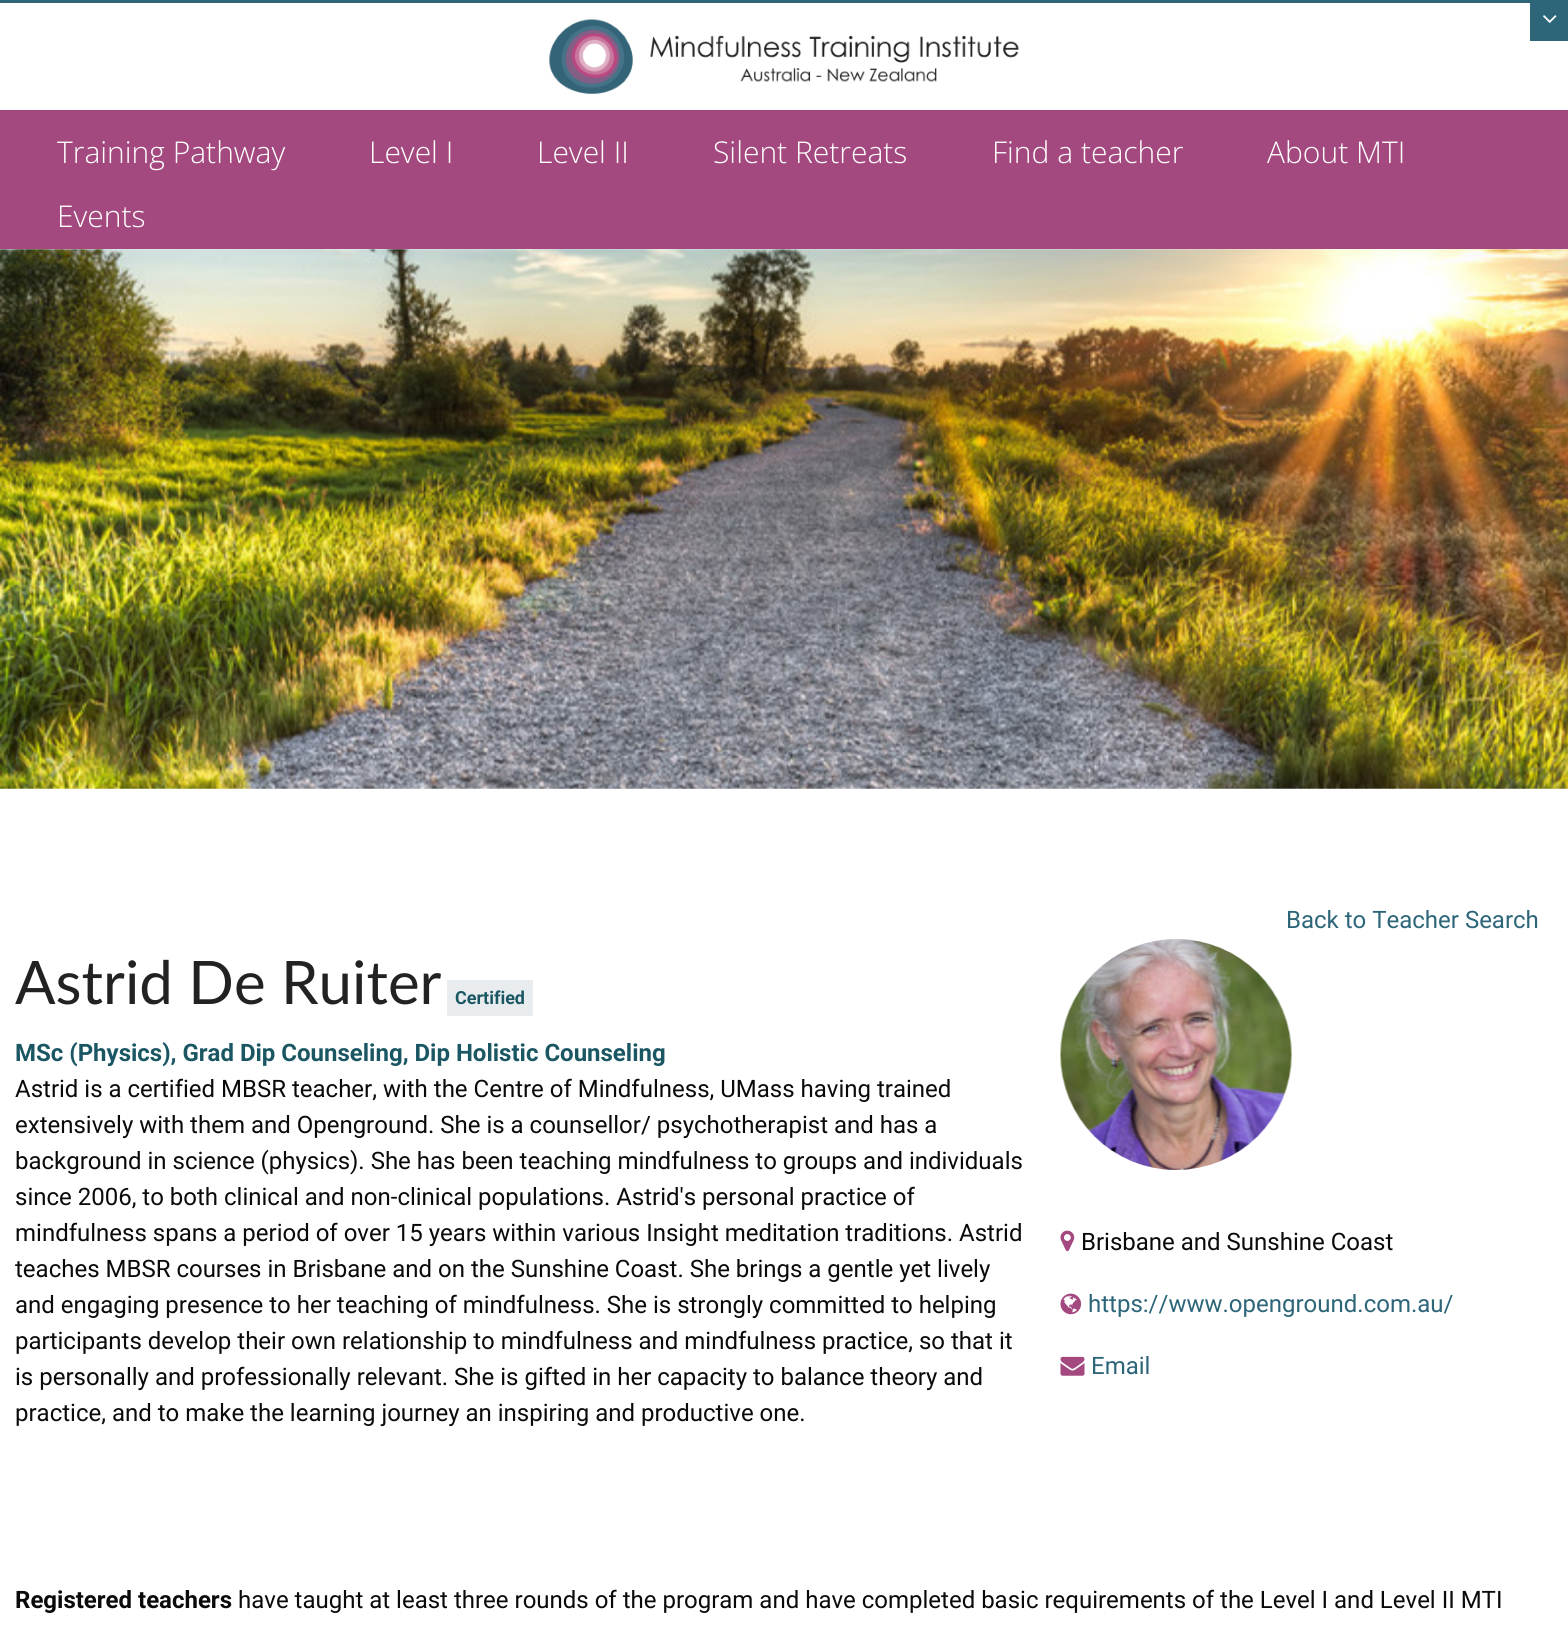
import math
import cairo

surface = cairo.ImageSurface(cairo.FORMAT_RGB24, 1568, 1641)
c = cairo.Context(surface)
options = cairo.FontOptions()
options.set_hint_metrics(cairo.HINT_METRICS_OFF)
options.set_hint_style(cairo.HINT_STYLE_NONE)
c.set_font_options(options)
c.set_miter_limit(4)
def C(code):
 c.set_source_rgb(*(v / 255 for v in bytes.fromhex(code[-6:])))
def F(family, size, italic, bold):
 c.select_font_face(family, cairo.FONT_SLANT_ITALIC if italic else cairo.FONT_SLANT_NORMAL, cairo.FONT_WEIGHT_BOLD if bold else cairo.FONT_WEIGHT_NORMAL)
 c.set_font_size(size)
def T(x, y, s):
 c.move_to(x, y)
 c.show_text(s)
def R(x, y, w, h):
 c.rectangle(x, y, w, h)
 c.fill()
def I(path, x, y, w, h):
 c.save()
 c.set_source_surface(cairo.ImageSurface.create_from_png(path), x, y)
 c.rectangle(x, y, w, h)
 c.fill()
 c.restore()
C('ffffff')
c.paint()
C('2d6579')
R(0,0,1530,3)
R(1530,0,38,41)
I('1.png',1543,15,14,8)
I('2.png',549,19,470,75)
C('a3497f')
R(0,110,1568,139)
F('Open Sans Light',30,0,0)
C('ffffff')
T(57,163,'Training Pathway')
T(369,163,'Level I')
T(537,163,'Level II')
T(713,163,'Silent Retreats')
T(992,163,'Find a teacher')
T(1267,163,'About MTI')
T(57,227,'Events')
I('3.png',0,249,1568,540)
F('Roboto',24,0,0)
C('2d6579')
T(1286,928,'Back to Teacher Search')
F('Lato',60,0,0)
C('222222')
T(15,1004,'Astrid De Ruiter')
C('e8ecef')
R(447,980,86,36)
F('Roboto',18,0,1)
C('1b5663')
T(455,1004,'Certified')
F('Roboto',24,0,1)
T(15,1061,'MSc (Physics), Grad Dip Counseling, Dip Holistic Counseling')
F('Roboto',24,0,0)
C('0a0a0a')
T(15,1097,'Astrid is a certified MBSR teacher, with the Centre of Mindfulness, UMass having trained')
T(15,1133,'extensively with them and Openground. She is a counsellor/ psychotherapist and has a')
T(15,1169,'background in science (physics). She has been teaching mindfulness to groups and individuals')
T(15,1205,'since 2006, to both clinical and non-clinical populations. Astrid\'s personal practice of')
T(15,1241,'mindfulness spans a period of over 15 years within various Insight meditation traditions. Astrid')
T(15,1277,'teaches MBSR courses in Brisbane and on the Sunshine Coast. She brings a gentle yet lively')
T(15,1313,'and engaging presence to her teaching of mindfulness. She is strongly committed to helping')
T(15,1349,'participants develop their own relationship to mindfulness and mindfulness practice, so that it')
T(15,1385,'is personally and professionally relevant. She is gifted in her capacity to balance theory and')
T(15,1421,'practice, and to make the learning journey an inspiring and productive one.')
I('4.png',1060,939,232,231)
I('5.png',1060,1230,15,22)
T(1081,1250,'Brisbane and Sunshine Coast')
I('6.png',1060,1293,22,22)
C('2d6579')
T(1088,1312,'https://www.openground.com.au/')
I('7.png',1060,1356,25,20)
T(1091,1374,'Email')
F('Roboto',24,0,1)
C('0a0a0a')
T(15,1608,'Registered teachers')
F('Roboto',24,0,0)
T(238,1608,'have taught at least three rounds of the program and have completed basic requirements of the Level I and Level II MTI')
surface.write_to_png('o.png')
